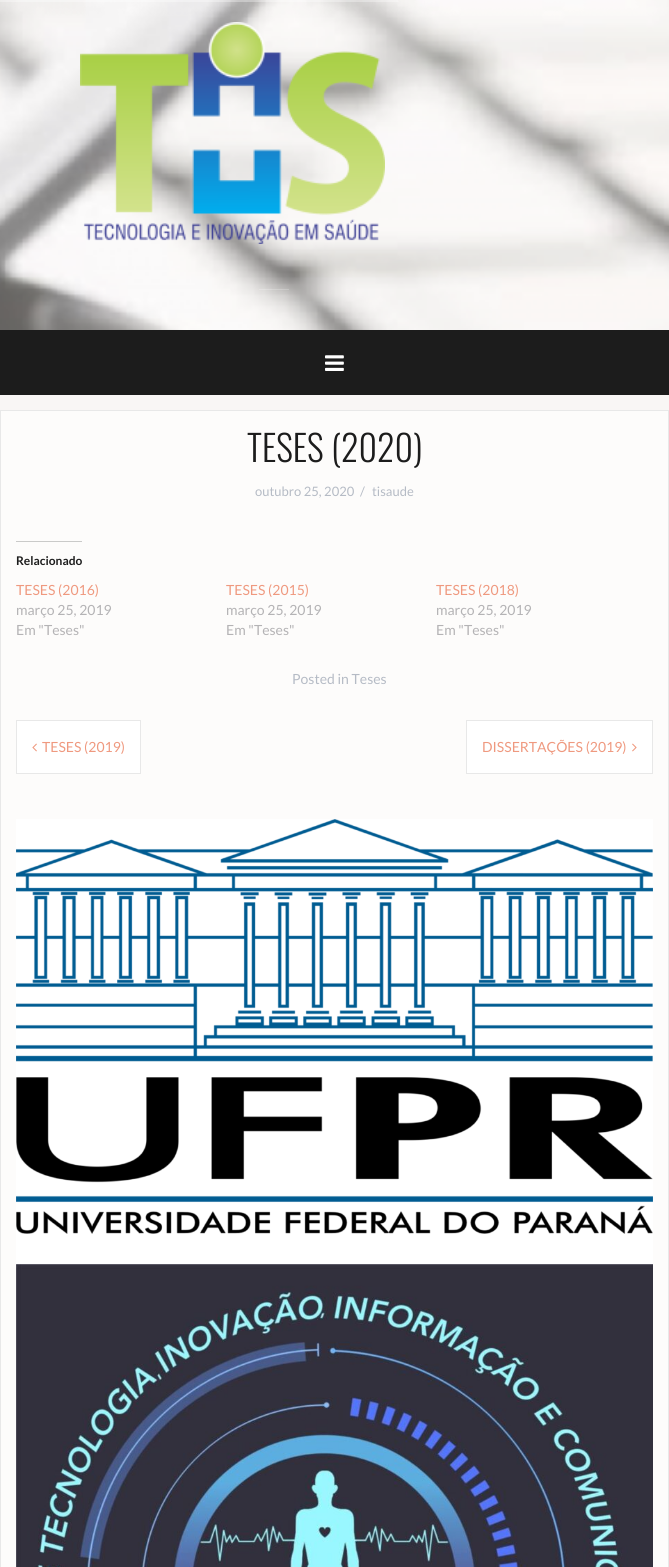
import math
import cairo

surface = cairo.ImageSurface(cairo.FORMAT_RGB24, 669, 1567)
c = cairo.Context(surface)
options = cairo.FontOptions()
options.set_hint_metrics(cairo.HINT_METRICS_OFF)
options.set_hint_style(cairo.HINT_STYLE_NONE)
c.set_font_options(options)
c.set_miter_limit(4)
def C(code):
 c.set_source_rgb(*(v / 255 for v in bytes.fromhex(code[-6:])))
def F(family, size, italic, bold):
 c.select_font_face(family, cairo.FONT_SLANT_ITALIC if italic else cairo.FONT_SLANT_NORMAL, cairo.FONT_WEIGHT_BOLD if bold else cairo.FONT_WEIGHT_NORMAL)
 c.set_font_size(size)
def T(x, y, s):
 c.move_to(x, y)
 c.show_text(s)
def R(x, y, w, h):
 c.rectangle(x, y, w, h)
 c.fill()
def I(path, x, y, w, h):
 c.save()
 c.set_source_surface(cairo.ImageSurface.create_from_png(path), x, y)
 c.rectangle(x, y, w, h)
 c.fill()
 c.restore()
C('f9f6f5')
c.paint()
I('1.png',0,0,669,330)
c.set_source_rgba(1,1,1,0.15)
R(0,0,398,2)
c.set_source_rgba(1,1,1,0.2)
R(0,0,398,1)
R(0,1,399,1)
I('2.png',80,22,305,222)
R(259,289,30,1)
C('1c1c1c')
R(0,330,669,65)
I('3.png',325,355,19,16)
C('fdfcfb')
c.rectangle(.5,410.5,668,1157)
c.fill_preserve()
C('e8e8e8')
c.set_line_width(1)
c.stroke()
F('Oswald Light',36,0,0)
C('1c1c1c')
T(247,462,'TESES (2020)')
F('Lato',13,0,0)
C('b5bbc5')
T(255,496,'outubro 25, 2020')
T(360,496,'/')
T(372,496,'tisaude')
C('cacac9')
R(16,541,66,1)
F('Lato',12,0,1)
C('1c1c1c')
T(16,565,'Relacionado')
F('Lato',14,0,0)
C('ef997f')
T(16,595,'TESES (2016)')
C('b4b3b5')
T(16,615,'março 25, 2019')
T(16,635,'Em "Teses"')
C('ef997f')
T(226,595,'TESES (2015)')
C('b4b3b5')
T(226,615,'março 25, 2019')
T(226,635,'Em "Teses"')
C('ef997f')
T(436,595,'TESES (2018)')
C('b4b3b5')
T(436,615,'março 25, 2019')
T(436,635,'Em "Teses"')
C('b5bbc5')
T(292,684,'Posted in Teses')
C('ffffff')
c.rectangle(16.5,720.5,124,53)
c.fill_preserve()
C('e8e8e8')
c.stroke()
I('4.png',32,743,5,9)
C('ef997f')
T(42,752,'TESES (2019)')
C('ffffff')
c.rectangle(466.5,720.5,186,53)
c.fill_preserve()
C('e8e8e8')
c.stroke()
C('ef997f')
T(482,752,'DISSERTAÇÕES (2019)')
I('5.png',632,743,5,9)
C('ffffff')
R(16,819,637,445)
I('6.png',16,819,637,415)
I('7.png',16,1264,637,303)
surface.write_to_png('o.png')
